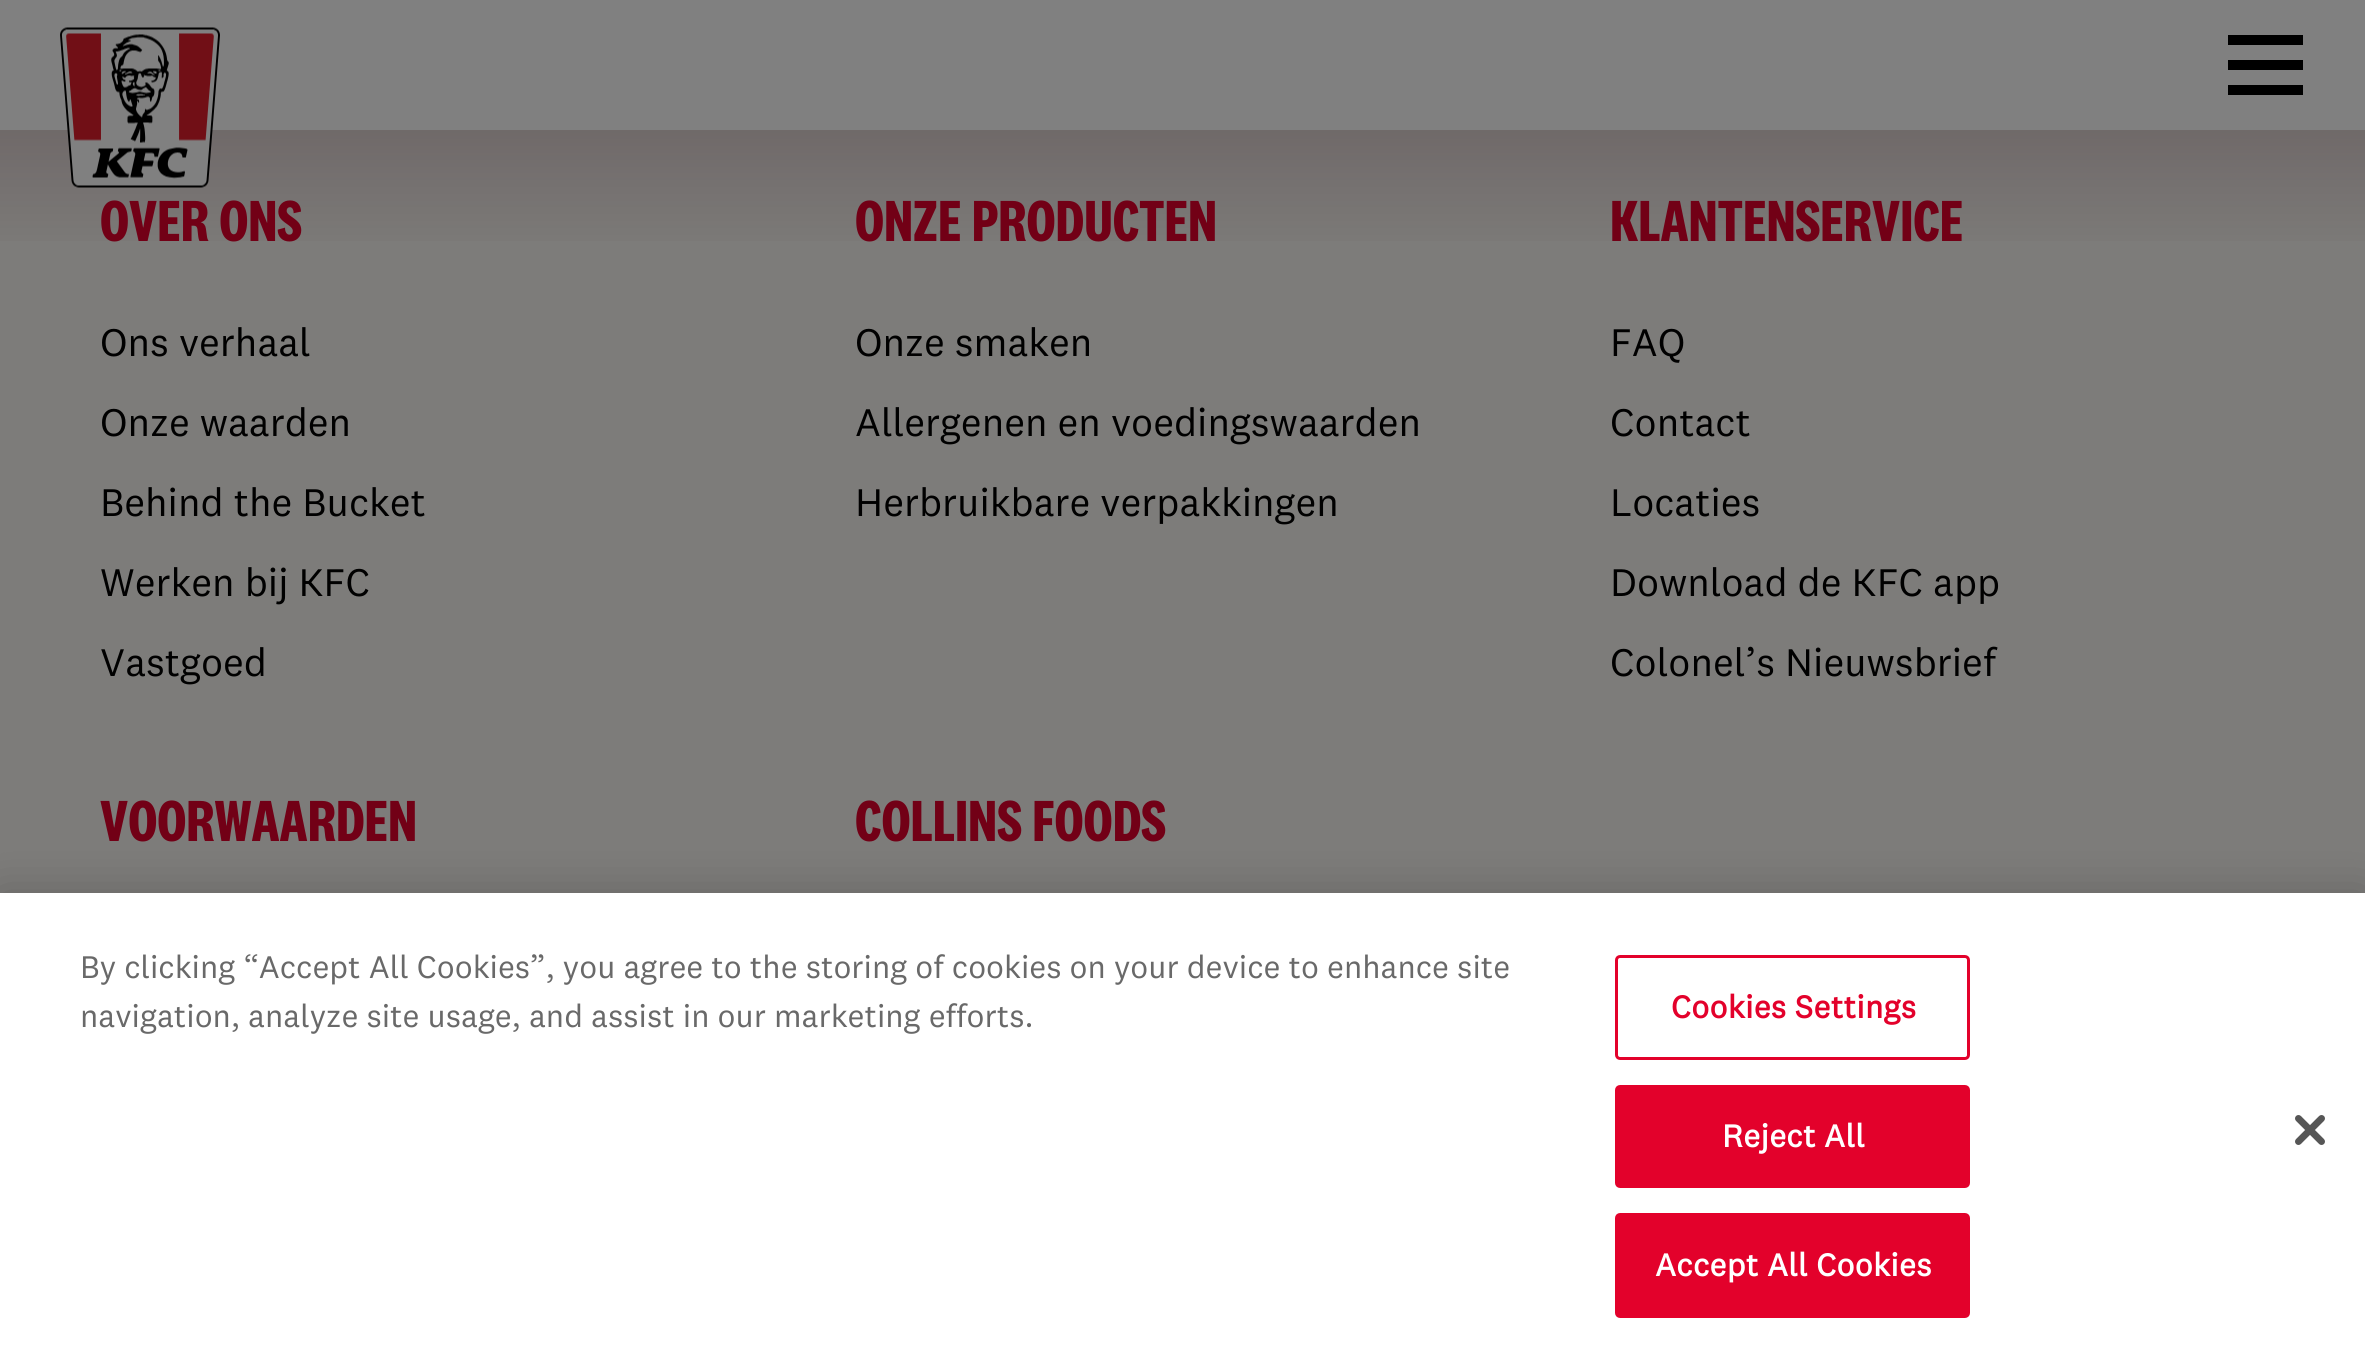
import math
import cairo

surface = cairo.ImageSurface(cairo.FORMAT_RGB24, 2365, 1366)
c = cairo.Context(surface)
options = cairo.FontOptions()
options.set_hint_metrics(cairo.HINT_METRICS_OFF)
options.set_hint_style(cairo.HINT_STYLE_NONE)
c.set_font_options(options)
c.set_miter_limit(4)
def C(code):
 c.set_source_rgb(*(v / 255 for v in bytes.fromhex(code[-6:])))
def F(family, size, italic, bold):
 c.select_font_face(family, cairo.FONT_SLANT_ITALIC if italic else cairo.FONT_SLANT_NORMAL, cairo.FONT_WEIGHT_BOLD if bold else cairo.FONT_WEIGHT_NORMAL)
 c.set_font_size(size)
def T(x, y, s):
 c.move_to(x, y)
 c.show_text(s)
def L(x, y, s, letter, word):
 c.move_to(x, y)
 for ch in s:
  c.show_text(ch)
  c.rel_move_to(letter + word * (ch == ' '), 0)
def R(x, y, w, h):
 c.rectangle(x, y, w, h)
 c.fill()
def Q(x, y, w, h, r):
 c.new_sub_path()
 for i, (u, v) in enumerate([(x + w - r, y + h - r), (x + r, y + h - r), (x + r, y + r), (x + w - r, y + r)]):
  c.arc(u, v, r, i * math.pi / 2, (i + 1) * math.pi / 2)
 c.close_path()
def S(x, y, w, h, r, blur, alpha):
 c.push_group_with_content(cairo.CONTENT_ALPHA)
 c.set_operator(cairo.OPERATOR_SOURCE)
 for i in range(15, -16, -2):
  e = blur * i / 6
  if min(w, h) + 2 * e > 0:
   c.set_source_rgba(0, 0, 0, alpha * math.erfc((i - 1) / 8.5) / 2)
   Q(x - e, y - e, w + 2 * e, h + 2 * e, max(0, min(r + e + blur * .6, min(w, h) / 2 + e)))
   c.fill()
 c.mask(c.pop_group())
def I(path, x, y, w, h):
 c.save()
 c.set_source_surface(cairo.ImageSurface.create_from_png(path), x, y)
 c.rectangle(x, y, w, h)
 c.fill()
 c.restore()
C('7d7c7a')
c.paint()
C('808080')
R(0,0,2365,130)
gradient = cairo.LinearGradient(1183,260,1183,130)
gradient.add_color_stop_rgba(0,0.145,0.004,0.031,0)
gradient.add_color_stop_rgba(1,0.145,0.004,0.031,.15)
c.set_source(gradient)
R(0,130,2365,111)
I('1.png',60,27,160,161)
C('000000')
R(2228,35,75,10)
R(2228,60,75,10)
R(2228,85,75,10)
F('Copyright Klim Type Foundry',60,0,1)
C('720016')
T(100,241,'OVER ONS')
F('Copyright Klim Type Foundry',40,0,0)
C('000000')
T(100,356,'Ons verhaal')
T(100,436,'Onze waarden')
T(100,516,'Behind the Bucket')
T(100,596,'Werken bij KFC')
T(100,676,'Vastgoed')
F('Copyright Klim Type Foundry',60,0,1)
C('720016')
T(855,241,'ONZE PRODUCTEN')
F('Copyright Klim Type Foundry',40,0,0)
C('000000')
T(855,356,'Onze smaken')
T(855,436,'Allergenen en voedingswaarden')
T(855,516,'Herbruikbare verpakkingen')
F('Copyright Klim Type Foundry',60,0,1)
C('720016')
T(1610,241,'KLANTENSERVICE')
F('Copyright Klim Type Foundry',40,0,0)
C('000000')
T(1610,356,'FAQ')
T(1610,436,'Contact')
T(1610,516,'Locaties')
T(1610,596,'Download de KFC app')
T(1610,676,'Colonel’s Nieuwsbrief')
F('Copyright Klim Type Foundry',60,0,1)
C('720016')
T(100,841,'VOORWAARDEN')
T(855,841,'COLLINS FOODS')
C('000000')
S(0,893,2365,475,0,22.5,.2)
C('ffffff')
R(0,893,2365,473)
F('Copyright Klim Type Foundry',32.5,0,0)
C('696969')
T(80,978,'By clicking “Accept All Cookies”, you agree to the storing of cookies on your device to enhance site')
T(80,1027,'navigation, analyze site usage, and assist in our marketing efforts.')
Q(1616.5,956.5,352,102,3.5)
C('e3012b')
c.set_line_width(3)
c.stroke()
F('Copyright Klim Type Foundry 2',32.5,0,1)
L(1671,1018,'Cookies Settings',.3,0)
Q(1616.5,1086.5,352,100,3.5)
c.fill_preserve()
c.stroke()
C('ffffff')
L(1722,1147,'Reject All',.3,0)
C('e3012b')
Q(1616.5,1214.5,352,102,3.5)
c.fill_preserve()
c.stroke()
C('ffffff')
L(1655,1276,'Accept All Cookies',.3,0)
I('2.png',2295,1115,30,30)
surface.write_to_png('o.png')
